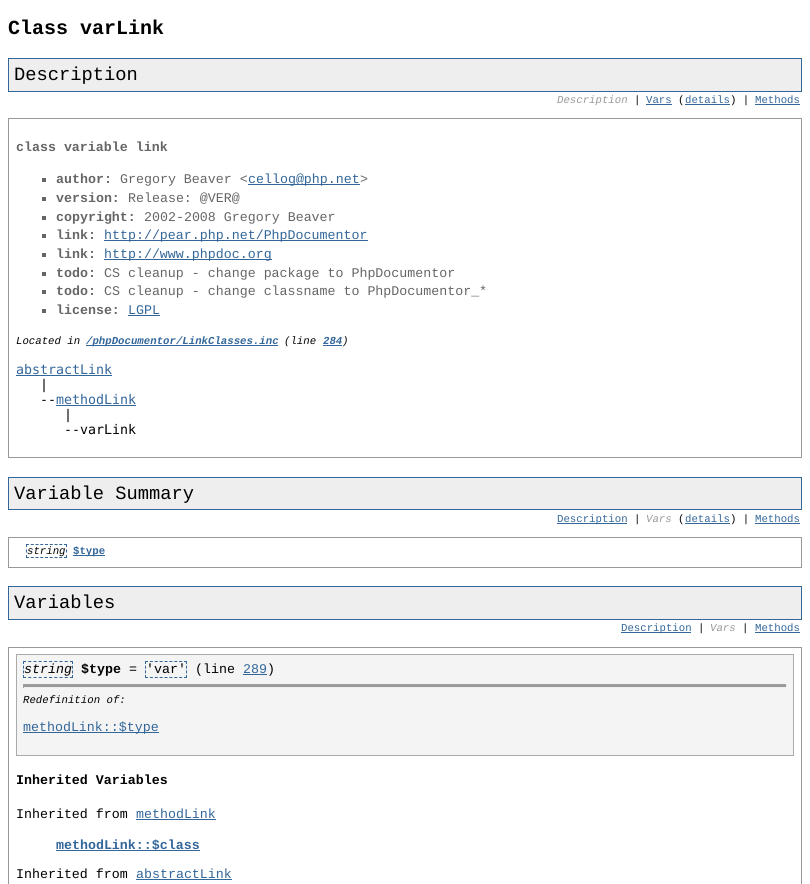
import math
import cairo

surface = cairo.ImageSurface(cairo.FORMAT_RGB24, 810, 884)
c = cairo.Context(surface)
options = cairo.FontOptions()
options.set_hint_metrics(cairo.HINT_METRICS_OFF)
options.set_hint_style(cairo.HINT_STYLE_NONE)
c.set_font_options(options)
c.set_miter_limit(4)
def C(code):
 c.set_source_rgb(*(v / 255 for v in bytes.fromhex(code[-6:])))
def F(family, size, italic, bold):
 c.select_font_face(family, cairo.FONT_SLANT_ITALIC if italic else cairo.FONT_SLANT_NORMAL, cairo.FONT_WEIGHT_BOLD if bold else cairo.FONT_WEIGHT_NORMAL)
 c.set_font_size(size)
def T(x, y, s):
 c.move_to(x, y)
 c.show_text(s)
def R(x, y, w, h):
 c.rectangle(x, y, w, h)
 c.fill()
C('ffffff')
c.paint()
F('Liberation Mono',20,0,1)
C('000000')
T(8,34,'Class varLink')
C('eeeeee')
c.rectangle(8.5,58.5,793,33)
c.fill_preserve()
C('336699')
c.set_line_width(1)
c.stroke()
F('Liberation Mono',18.75,0,0)
C('000000')
T(14,80,'Description')
F('Liberation Mono',10.7,1,0)
C('999999')
T(557,103,'Description')
F('Liberation Mono',10.7,0,0)
C('000000')
T(634,103,'|')
C('336699')
T(646,103,'Vars')
R(646,104,26,1)
C('000000')
T(678,103,'(')
C('336699')
T(685,103,'details')
R(685,104,45,1)
C('000000')
T(730,103,') |')
C('336699')
T(755,103,'Methods')
R(755,104,45,1)
c.rectangle(8.5,118.5,793,339)
C('999999')
c.stroke()
F('Liberation Mono',13.3,0,1)
C('666666')
T(16,151,'class variable link')
R(42,178,4,4)
T(56,183,'author:')
F('Liberation Mono',13.3,0,0)
T(120,183,'Gregory Beaver <')
C('336699')
R(248,184,112,1)
T(248,183,'cellog@php.net')
C('666666')
T(360,183,'>')
R(42,197,4,4)
F('Liberation Mono',13.3,0,1)
T(56,202,'version:')
F('Liberation Mono',13.3,0,0)
T(128,202,'Release: @VER@')
R(42,216,4,4)
F('Liberation Mono',13.3,0,1)
T(56,221,'copyright:')
F('Liberation Mono',13.3,0,0)
T(144,221,'2002-2008 Gregory Beaver')
R(42,234,4,4)
F('Liberation Mono',13.3,0,1)
T(56,239,'link:')
C('336699')
R(104,240,264,1)
F('Liberation Mono',13.3,0,0)
T(104,239,'http://pear.php.net/PhpDocumentor')
C('666666')
R(42,253,4,4)
F('Liberation Mono',13.3,0,1)
T(56,258,'link:')
C('336699')
R(104,259,168,1)
F('Liberation Mono',13.3,0,0)
T(104,258,'http://www.phpdoc.org')
C('666666')
R(42,272,4,4)
F('Liberation Mono',13.3,0,1)
T(56,277,'todo:')
F('Liberation Mono',13.3,0,0)
T(104,277,'CS cleanup - change package to PhpDocumentor')
R(42,290,4,4)
F('Liberation Mono',13.3,0,1)
T(56,295,'todo:')
F('Liberation Mono',13.3,0,0)
T(104,295,'CS cleanup - change classname to PhpDocumentor_*')
R(42,309,4,4)
F('Liberation Mono',13.3,0,1)
T(56,314,'license:')
F('Liberation Mono',13.3,0,0)
C('336699')
T(128,314,'LGPL')
R(128,315,32,1)
F('Liberation Mono',10.7,1,0)
C('000000')
T(16,344,'Located in')
C('336699')
R(86,345,192,1)
F('Liberation Mono',10.7,1,1)
T(86,344,'/phpDocumentor/LinkClasses.inc')
F('Liberation Mono',10.7,1,0)
C('000000')
T(284,344,'(line')
F('Liberation Mono',10.7,1,1)
C('336699')
T(323,344,'284')
R(323,345,19,1)
F('Liberation Mono',10.7,1,0)
C('000000')
T(342,344,')')
F('DejaVu Sans Mono',13.3,0,0)
C('336699')
T(16,374,'abstractLink')
R(16,375,96,1)
C('000000')
T(40,389,'|')
T(40,404,'--')
C('336699')
T(56,404,'methodLink')
R(56,405,80,1)
C('000000')
T(64,419,'|')
T(64,434,'--varLink')
C('eeeeee')
c.rectangle(8.5,477.5,793,32)
c.fill_preserve()
C('336699')
c.stroke()
F('Liberation Mono',18.75,0,0)
C('000000')
T(14,499,'Variable Summary')
C('336699')
R(557,523,70,1)
F('Liberation Mono',10.7,0,0)
T(557,522,'Description')
C('000000')
T(634,522,'|')
F('Liberation Mono',10.7,1,0)
C('999999')
T(646,522,'Vars')
F('Liberation Mono',10.7,0,0)
C('000000')
T(678,522,'(')
C('336699')
T(685,522,'details')
R(685,523,45,1)
C('000000')
T(730,522,') |')
C('336699')
T(755,522,'Methods')
R(755,523,45,1)
c.rectangle(8.5,537.5,793,30)
C('999999')
c.stroke()
F('Liberation Mono',10.7,1,0)
C('000000')
T(27,554,'string')
c.new_path()
c.move_to(26,544.5)
c.line_to(67,544.5)
C('336699')
c.set_dash([3,1.75])
c.stroke()
c.new_path()
c.move_to(66.5,544)
c.line_to(66.5,547)
c.move_to(66.5,549.5)
c.line_to(66.5,552.5)
c.move_to(66.5,555)
c.line_to(66.5,558)
c.set_dash([])
c.stroke()
c.new_path()
c.move_to(26,557.5)
c.line_to(67,557.5)
c.set_dash([3,1.75])
c.stroke()
c.new_path()
c.move_to(26.5,544)
c.line_to(26.5,547)
c.move_to(26.5,549.5)
c.line_to(26.5,552.5)
c.move_to(26.5,555)
c.line_to(26.5,558)
c.set_dash([])
c.stroke()
R(73,555,32,1)
F('Liberation Mono',10.7,0,1)
T(73,554,'$type')
C('eeeeee')
c.rectangle(8.5,586.5,793,33)
c.fill_preserve()
C('336699')
c.stroke()
F('Liberation Mono',18.75,0,0)
C('000000')
T(14,608,'Variables')
C('336699')
R(621,632,70,1)
F('Liberation Mono',10.7,0,0)
T(621,631,'Description')
C('000000')
T(698,631,'|')
F('Liberation Mono',10.7,1,0)
C('999999')
T(710,631,'Vars')
F('Liberation Mono',10.7,0,0)
C('000000')
T(742,631,'|')
C('336699')
T(755,631,'Methods')
R(755,632,45,1)
c.rectangle(8.5,647.5,793,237)
C('999999')
c.stroke()
C('f4f4f4')
c.rectangle(16.5,654.5,777,101)
c.fill_preserve()
C('aaaaaa')
c.stroke()
F('Liberation Mono',13.3,1,0)
C('000000')
T(24,673,'string')
c.new_path()
c.move_to(23,661.5)
c.line_to(73,661.5)
C('336699')
c.set_dash([3,2.22])
c.stroke()
c.new_path()
c.move_to(72.5,661)
c.line_to(72.5,678)
c.set_dash([3,1.67])
c.stroke()
c.new_path()
c.move_to(23,677.5)
c.line_to(73,677.5)
c.set_dash([3,2.22])
c.stroke()
c.new_path()
c.move_to(23.5,661)
c.line_to(23.5,678)
c.set_dash([3,1.67])
c.stroke()
F('Liberation Mono',13.3,0,1)
C('000000')
T(81,673,'$type')
F('Liberation Mono',13.3,0,0)
T(129,673,'=')
T(146,673,'\'var\'')
c.new_path()
c.move_to(145,661.5)
c.line_to(187,661.5)
C('336699')
c.set_dash([3,1.88])
c.stroke()
c.new_path()
c.move_to(186.5,661)
c.line_to(186.5,678)
c.set_dash([3,1.67])
c.stroke()
c.new_path()
c.move_to(145,677.5)
c.line_to(187,677.5)
c.set_dash([3,1.88])
c.stroke()
c.new_path()
c.move_to(145.5,661)
c.line_to(145.5,678)
c.set_dash([3,1.67])
c.stroke()
C('000000')
T(195,673,'(line')
C('336699')
T(243,673,'289')
R(243,674,24,1)
C('000000')
T(267,673,')')
C('999999')
R(23,685,764,2)
C('9f9f9f')
R(23,684,764,1)
C('eeeeee')
R(786,684,1,4)
R(23,687,764,1)
C('9f9f9f')
R(23,684,1,4)
F('Liberation Mono',10.7,1,0)
C('000000')
T(23,703,'Redefinition of:')
C('336699')
R(23,732,136,1)
F('Liberation Mono',13.3,0,0)
T(23,731,'methodLink::$type')
F('Liberation Mono',13.3,0,1)
C('000000')
T(16,784,'Inherited Variables')
F('Liberation Mono',13.3,0,0)
T(16,818,'Inherited from')
C('336699')
T(136,818,'methodLink')
R(136,819,80,1)
R(56,850,144,1)
F('Liberation Mono',13.3,0,1)
T(56,849,'methodLink::$class')
F('Liberation Mono',13.3,0,0)
C('000000')
T(16,878,'Inherited from')
C('336699')
T(136,878,'abstractLink')
R(136,879,96,1)
surface.write_to_png('o.png')
